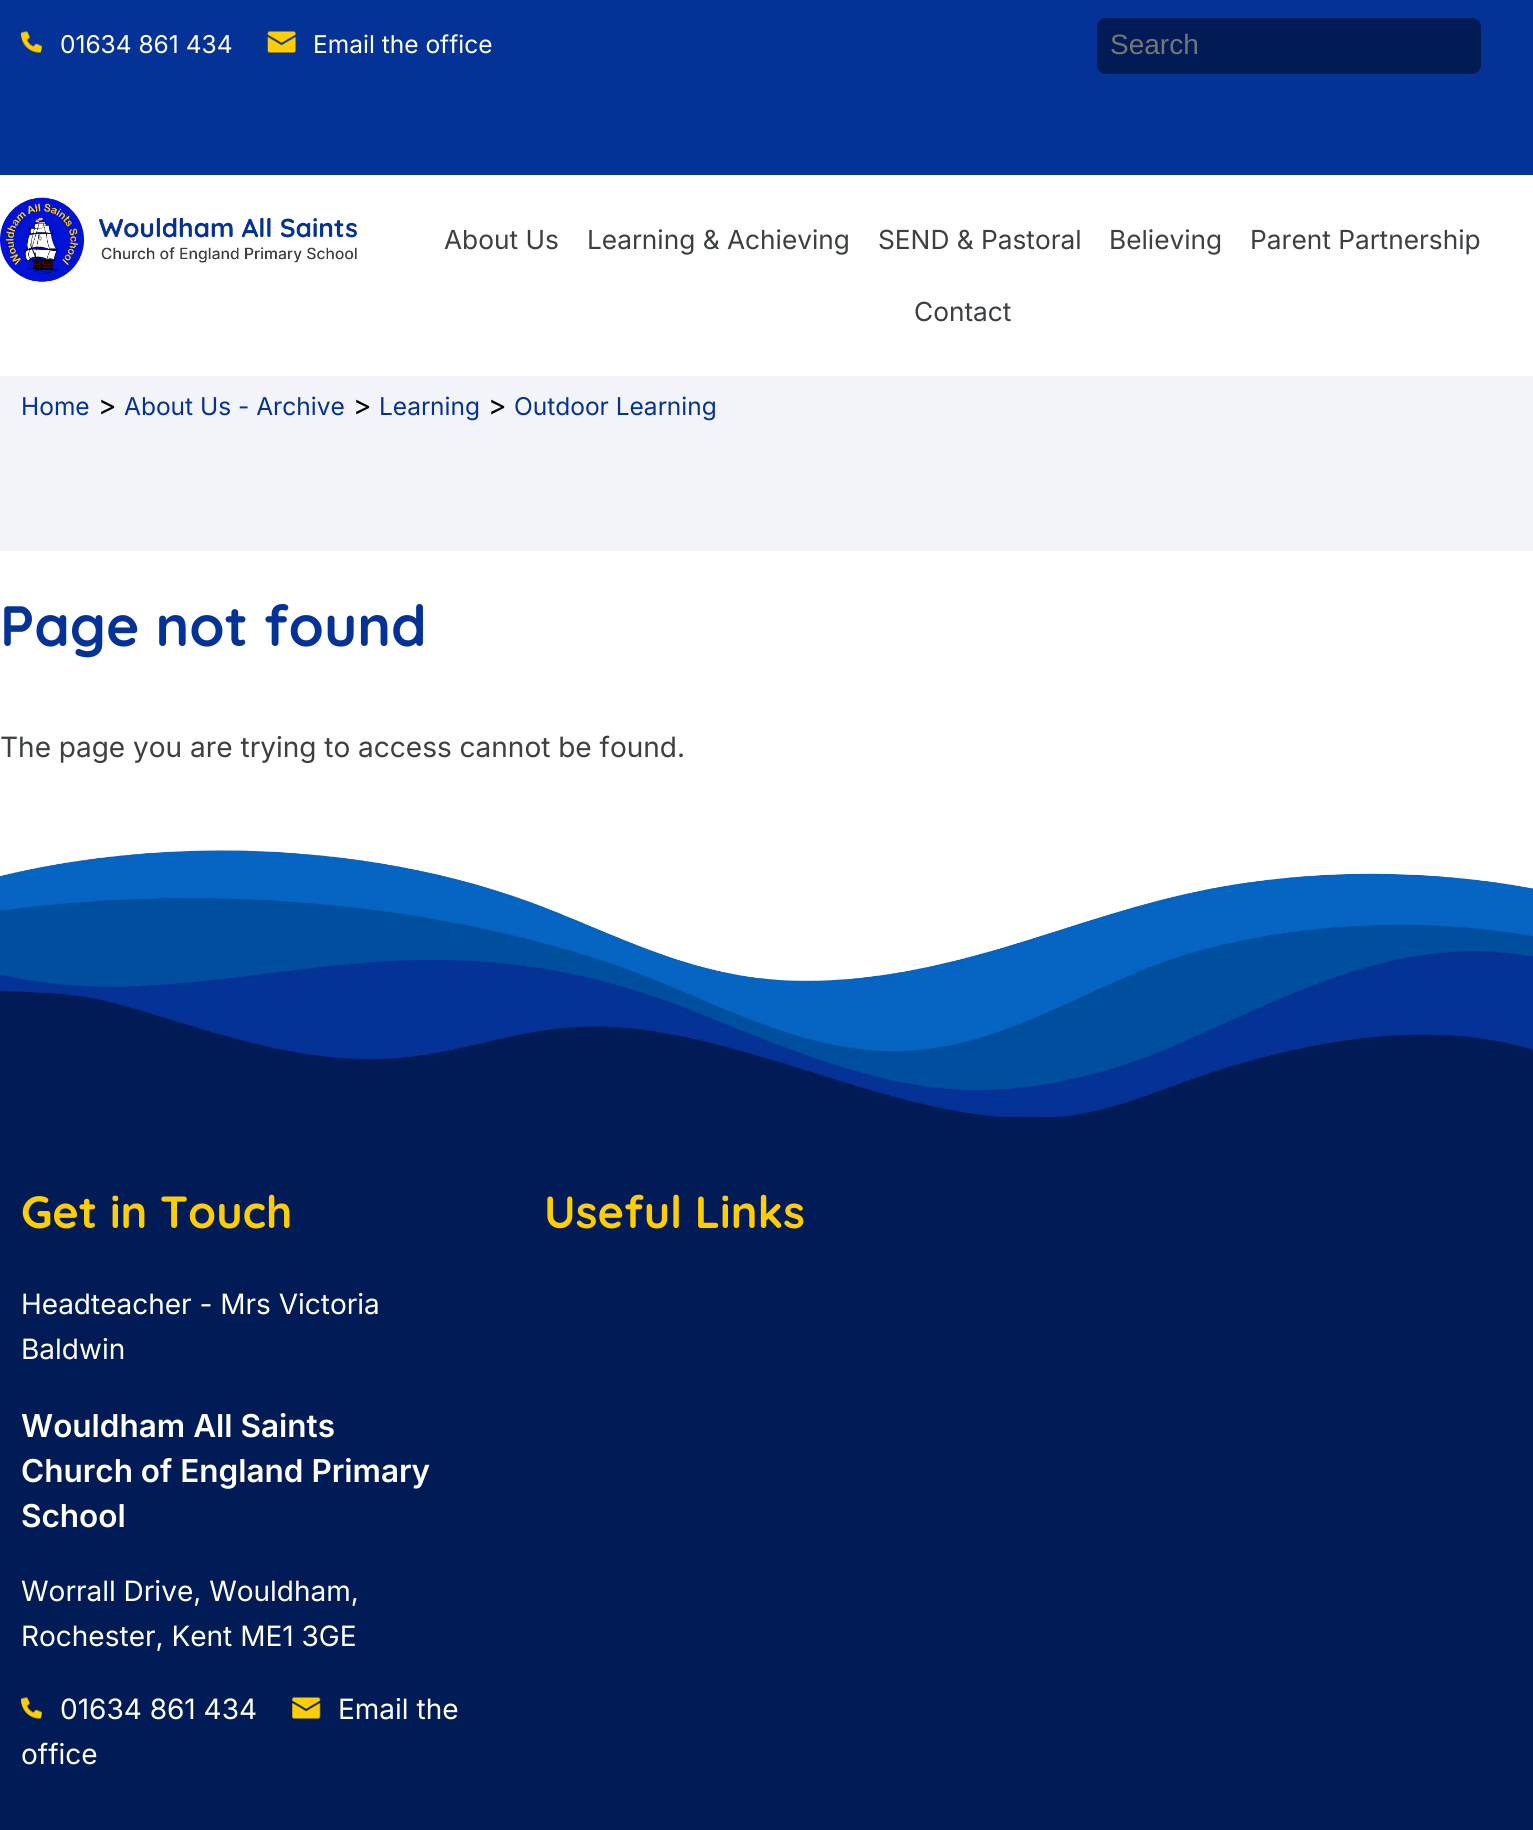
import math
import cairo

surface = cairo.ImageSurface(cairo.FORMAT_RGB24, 1533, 1830)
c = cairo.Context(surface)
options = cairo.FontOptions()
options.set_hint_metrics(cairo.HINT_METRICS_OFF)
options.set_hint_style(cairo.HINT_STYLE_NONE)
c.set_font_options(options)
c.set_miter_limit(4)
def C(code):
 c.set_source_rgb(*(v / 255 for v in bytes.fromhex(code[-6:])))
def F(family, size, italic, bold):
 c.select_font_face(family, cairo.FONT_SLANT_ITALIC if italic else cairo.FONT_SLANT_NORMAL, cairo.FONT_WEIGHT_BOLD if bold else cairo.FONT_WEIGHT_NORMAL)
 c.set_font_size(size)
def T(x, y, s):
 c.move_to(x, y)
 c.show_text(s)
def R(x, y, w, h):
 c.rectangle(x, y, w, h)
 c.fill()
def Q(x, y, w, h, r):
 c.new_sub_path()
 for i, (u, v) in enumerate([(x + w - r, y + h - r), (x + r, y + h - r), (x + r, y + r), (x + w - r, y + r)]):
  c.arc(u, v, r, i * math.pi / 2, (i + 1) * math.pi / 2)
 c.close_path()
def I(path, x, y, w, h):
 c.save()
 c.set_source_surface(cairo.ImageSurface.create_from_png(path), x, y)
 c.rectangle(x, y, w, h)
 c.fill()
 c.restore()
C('ffffff')
c.paint()
C('053296')
R(0,0,1533,175)
I('1.png',21,31,21,22)
F('Inter',24.5,0,0)
C('ffffff')
T(60,53,'01634 861 434')
I('2.png',267,31,29,22)
T(313,53,'Email the office')
C('001b55')
Q(1097,18,384,56,9)
c.fill()
F('Liberation Sans',28,0,0)
C('757575')
T(1110,54,'Search')
I('3.png',0,197,357,85)
F('Inter',26.25,0,0)
C('3c4043')
T(444,249,'About Us')
T(587,249,'Learning & Achieving')
T(878,249,'SEND & Pastoral')
T(1109,249,'Believing')
T(1250,249,'Parent Partnership')
T(914,321,'Contact')
C('f2f4fa')
R(0,376,1533,175)
F('Inter',24.5,0,0)
C('053296')
T(21,415,'Home')
F('Inter',28,0,0)
C('000000')
T(98,415,'>')
F('Inter',24.5,0,0)
C('053296')
T(124,415,'About Us - Archive')
F('Inter',28,0,0)
C('000000')
T(353,415,'>')
F('Inter',24.5,0,0)
C('053296')
T(379,415,'Learning')
F('Inter',28,0,0)
C('000000')
T(488,415,'>')
F('Inter',24.5,0,0)
C('053296')
T(514,415,'Outdoor Learning')
F('Quicksand',56.75,0,1)
T(0,646,'Page not found')
F('Inter',28,0,0)
C('3c4043')
T(0,757,'The page you are trying to access cannot be found.')
C('001b55')
R(0,1117,1533,713)
I('4.png',0,850,1533,267)
F('Quicksand',45,0,1)
C('ffce00')
T(21,1228,'Get in Touch')
F('Inter',28,0,0)
C('ffffff')
T(21,1314,'Headteacher - Mrs Victoria')
T(21,1359,'Baldwin')
F('Inter SemiBold',31.5,0,0)
T(21,1437,'Wouldham All Saints')
T(21,1482,'Church of England Primary')
T(21,1527,'School')
F('Inter',28,0,0)
T(21,1601,'Worrall Drive, Wouldham,')
T(21,1646,'Rochester, Kent ME1 3GE')
I('5.png',21,1697,21,22)
T(60,1719,'01634 861 434')
I('6.png',292,1697,29,22)
T(338,1719,'Email the')
T(21,1764,'office')
F('Quicksand',45,0,1)
C('ffce00')
T(544,1228,'Useful Links')
surface.write_to_png('o.png')
